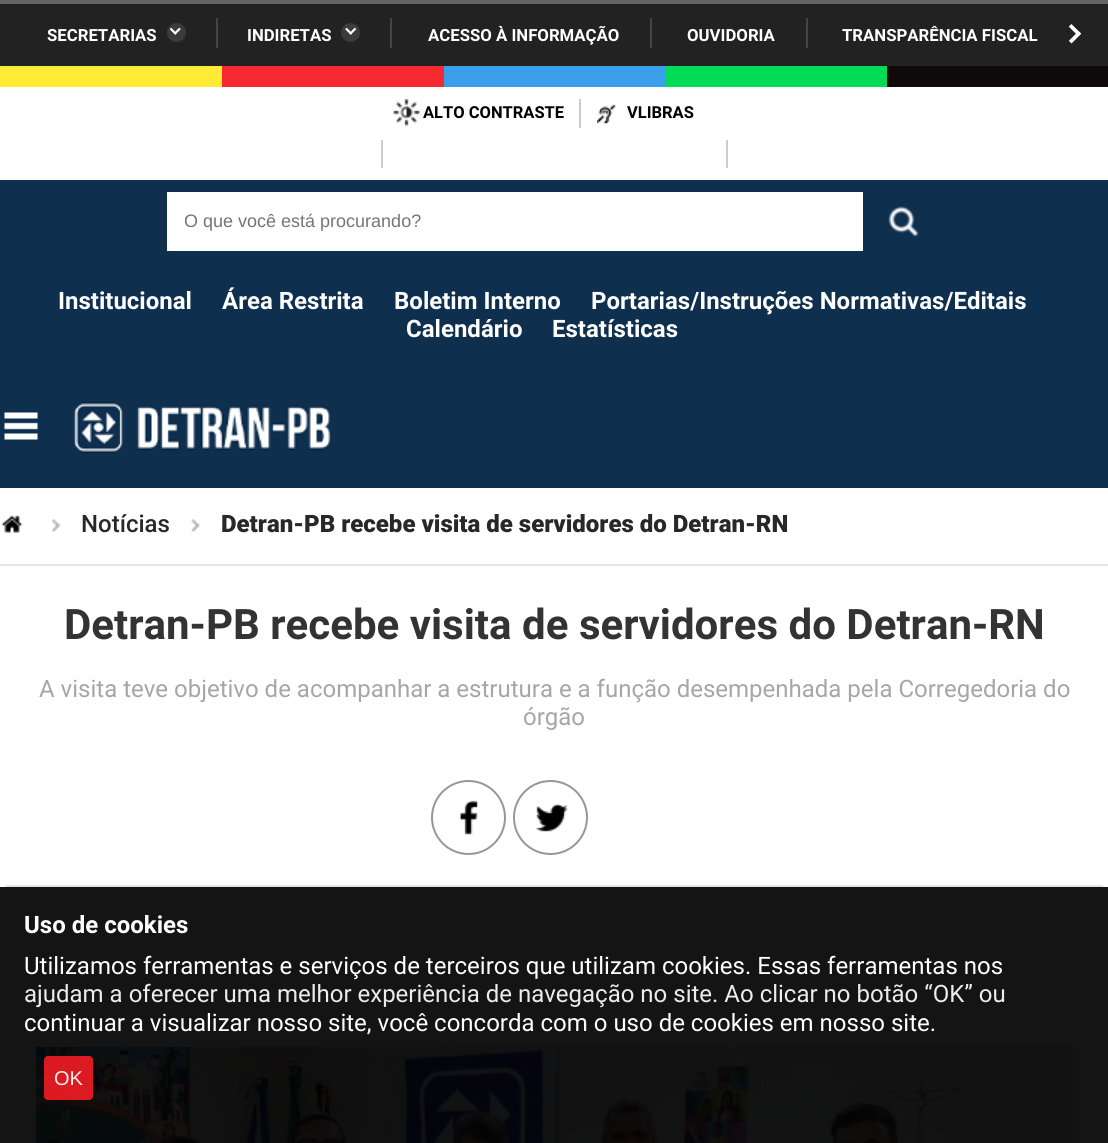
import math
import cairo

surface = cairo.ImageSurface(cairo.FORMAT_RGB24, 1108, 1143)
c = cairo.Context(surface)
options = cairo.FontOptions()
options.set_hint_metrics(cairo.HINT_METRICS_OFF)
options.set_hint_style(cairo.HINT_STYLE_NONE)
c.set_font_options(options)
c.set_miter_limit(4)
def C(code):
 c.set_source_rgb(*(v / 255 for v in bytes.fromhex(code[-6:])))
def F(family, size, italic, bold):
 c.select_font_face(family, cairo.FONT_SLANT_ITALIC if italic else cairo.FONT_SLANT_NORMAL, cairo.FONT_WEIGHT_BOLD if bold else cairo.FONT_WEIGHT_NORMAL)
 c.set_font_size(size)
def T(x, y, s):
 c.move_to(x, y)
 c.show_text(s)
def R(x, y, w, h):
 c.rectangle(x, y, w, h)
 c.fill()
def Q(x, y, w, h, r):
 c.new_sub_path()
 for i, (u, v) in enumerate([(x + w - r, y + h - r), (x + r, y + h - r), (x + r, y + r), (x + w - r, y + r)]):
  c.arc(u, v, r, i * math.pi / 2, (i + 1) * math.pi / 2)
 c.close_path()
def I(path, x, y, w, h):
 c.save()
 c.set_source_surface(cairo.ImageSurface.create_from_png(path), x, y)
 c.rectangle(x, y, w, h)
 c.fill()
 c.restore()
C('ffffff')
c.paint()
C('141414')
R(0,887,1108,256)
C('222222')
R(0,4,1108,62)
C('646464')
R(0,0,1108,4)
F('Roboto',16.75,0,1)
C('ffffff')
T(47,41,'SECRETARIAS')
C('3b3b3b')
c.new_path()
c.arc(176.5,32.5,9.5,0,2 * math.pi)
c.fill()
I('1.png',170,27,11,8)
C('454545')
R(216,18,2,30)
C('ffffff')
T(247,41,'INDIRETAS')
C('3b3b3b')
c.new_path()
c.arc(350.5,32.5,9.5,0,2 * math.pi)
c.fill()
I('2.png',345,27,12,8)
C('454545')
R(390,18,2,30)
C('ffffff')
T(428,41,'ACESSO À INFORMAÇÃO')
C('454545')
R(650,18,2,30)
C('ffffff')
T(687,41,'OUVIDORIA')
C('454545')
R(806,18,2,30)
C('ffffff')
T(842,41,'TRANSPARÊNCIA FISCAL')
I('3.png',1068,24,14,20)
C('ffeb36')
R(0,66,222,21)
C('f72930')
R(222,66,222,21)
C('399fe8')
R(444,66,221,21)
C('00dc58')
R(665,66,222,21)
C('0f0a0a')
R(887,66,221,21)
C('cccccc')
R(579,99,2,29)
I('4.png',393,99,27,27)
F('Roboto',16.5,0,1)
C('000000')
T(423,118,'ALTO CONTRASTE')
I('5.png',597,104,19,20)
T(627,118,'VLIBRAS')
C('cccccc')
R(726,140,2,28)
R(381,140,2,28)
C('0f2f4e')
R(0,180,1108,308)
C('ffffff')
R(167,192,696,59)
c.save()
c.rectangle(185,210,661,21)
c.clip()
F('Liberation Sans',18,0,0)
C('757575')
T(184,227,'O que você está procurando?')
c.restore()
I('6.png',888,206,31,31)
F('Roboto',24,0,1)
T(58,309,'Institucional')
T(222,309,'Área Restrita')
T(394,309,'Boletim Interno')
T(591,309,'Portarias/Instruções Normativas/Editais')
T(406,337,'Calendário')
T(552,337,'Estatísticas')
I('7.png',4,412,34,28)
I('8.png',73,402,259,51)
C('e6e6e6')
R(0,564,1108,2)
I('9.png',1,515,22,18)
I('10.png',51,519,10,13)
F('Roboto Medium',24,0,0)
C('282828')
T(81,532,'Notícias')
I('11.png',191,519,9,13)
F('Roboto Black',24,0,0)
T(221,532,'Detran-PB recebe visita de servidores do Detran-RN')
F('Roboto',42,0,1)
C('333333')
T(64,639,'Detran-PB recebe visita de servidores do Detran-RN')
F('Roboto',24,0,0)
C('a6a6a6')
T(39,697,'A visita teve objetivo de acompanhar a estrutura e a função desempenhada pela Corregedoria do')
T(523,725,'órgão')
c.new_path()
c.arc(468.5,817.5,36.5,0,2 * math.pi)
C('979797')
c.stroke()
I('12.png',460,800,19,35)
c.arc(550.5,817.5,36.5,0,2 * math.pi)
c.stroke()
I('13.png',535,803,33,29)
C('e6e6e6')
R(6,885,1097,2)
I('14.png',36,1047,1037,96)
F('Roboto',24,0,1)
C('ffffff')
T(24,933,'Uso de cookies')
F('Roboto',24,0,0)
T(24,974,'Utilizamos ferramentas e serviços de terceiros que utilizam cookies. Essas ferramentas nos')
C('ececec')
T(24,1002,'ajudam a oferecer uma melhor experiência de navegação no site. Ao clicar no botão “OK” ou')
C('ffffff')
T(24,1031,'continuar a visualizar nosso site, você concorda com o uso de cookies em nosso site.')
c.set_source_rgba(0.929,0.11,0.141,0.92)
Q(44,1056,49,44,4)
c.fill()
F('Liberation Sans',20,0,0)
C('fceded')
T(54,1085,'OK')
surface.write_to_png('o.png')
